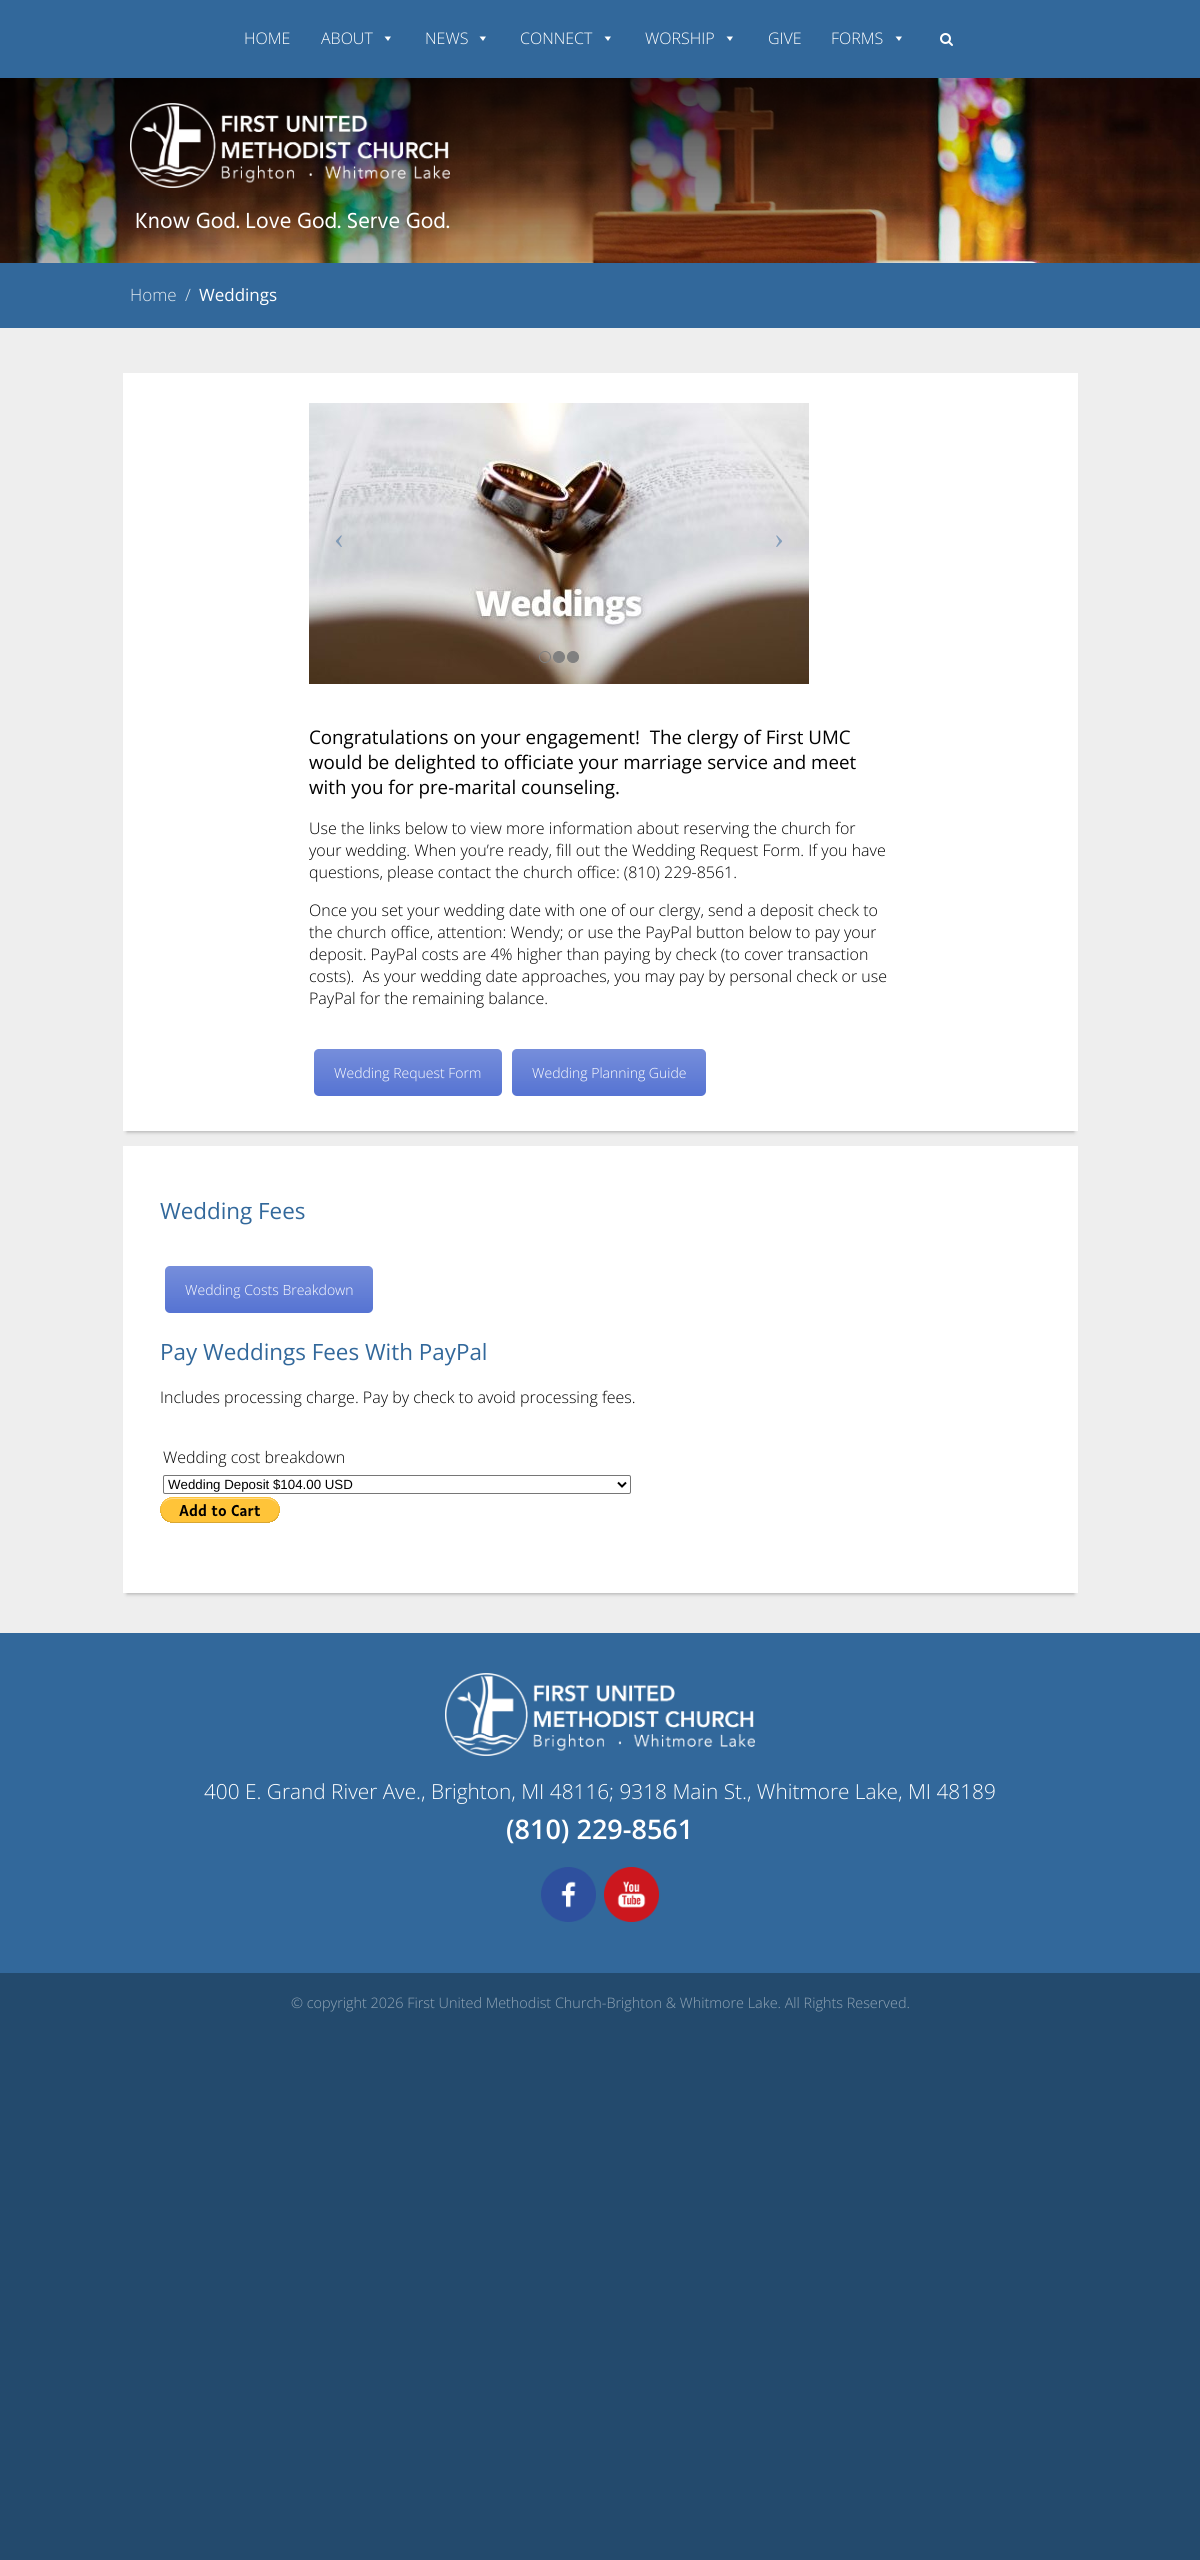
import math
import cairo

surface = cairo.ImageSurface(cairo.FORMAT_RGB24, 1200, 2560)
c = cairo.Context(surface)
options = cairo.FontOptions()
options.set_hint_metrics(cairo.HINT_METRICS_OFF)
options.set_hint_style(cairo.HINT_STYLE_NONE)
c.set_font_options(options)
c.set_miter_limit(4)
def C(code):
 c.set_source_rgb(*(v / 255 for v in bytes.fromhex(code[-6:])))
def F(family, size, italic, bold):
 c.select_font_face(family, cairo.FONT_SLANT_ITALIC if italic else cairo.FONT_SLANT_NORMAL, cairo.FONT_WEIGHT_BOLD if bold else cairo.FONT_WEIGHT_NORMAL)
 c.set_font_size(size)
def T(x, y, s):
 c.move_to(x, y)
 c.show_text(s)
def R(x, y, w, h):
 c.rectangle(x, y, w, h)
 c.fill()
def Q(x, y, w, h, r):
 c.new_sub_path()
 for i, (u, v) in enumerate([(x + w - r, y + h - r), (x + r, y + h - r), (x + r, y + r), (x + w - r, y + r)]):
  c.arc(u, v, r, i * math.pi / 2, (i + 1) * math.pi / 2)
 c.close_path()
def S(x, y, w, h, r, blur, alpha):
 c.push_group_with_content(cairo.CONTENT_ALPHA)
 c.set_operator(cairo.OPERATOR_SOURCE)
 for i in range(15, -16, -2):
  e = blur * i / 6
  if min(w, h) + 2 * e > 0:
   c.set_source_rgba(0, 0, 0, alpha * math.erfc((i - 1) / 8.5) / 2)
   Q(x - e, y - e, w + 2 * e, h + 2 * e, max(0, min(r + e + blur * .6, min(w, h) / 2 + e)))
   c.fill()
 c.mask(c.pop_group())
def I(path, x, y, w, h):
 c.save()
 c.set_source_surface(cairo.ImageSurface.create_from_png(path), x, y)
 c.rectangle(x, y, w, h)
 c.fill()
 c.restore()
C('234a6d')
c.paint()
C('32689b')
R(0,0,1200,78)
F('Open Sans Light',16,0,0)
C('ffffff')
T(244,44,'HOME')
T(321,44,'ABOUT')
c.new_path()
c.move_to(391,36.5)
c.line_to(388,41)
c.line_to(384.5,36.5)
c.close_path()
c.fill()
T(425,44,'NEWS')
c.new_path()
c.move_to(486,36.5)
c.line_to(483,41)
c.line_to(479.5,36.5)
c.close_path()
c.fill()
T(520,44,'CONNECT')
c.new_path()
c.move_to(611,36.5)
c.line_to(608,41)
c.line_to(604.5,36.5)
c.close_path()
c.fill()
T(645,44,'WORSHIP')
c.new_path()
c.move_to(733,36.5)
c.line_to(730,41)
c.line_to(726.5,36.5)
c.close_path()
c.fill()
T(768,44,'GIVE')
T(831,44,'FORMS')
c.new_path()
c.move_to(902,36.5)
c.line_to(899,41)
c.line_to(895.5,36.5)
c.close_path()
c.fill()
I('1.png',940,33,13,13)
I('2.png',0,78,1200,185)
I('3.png',0,78,1018,185)
I('4.png',130,103,320,85)
F('Hind',22.4,0,0)
T(135,228,'Know God. Love God. Serve God.')
C('eeeeee')
R(0,328,1200,1305)
C('32689b')
R(0,263,1200,65)
F('Open Sans Light',17,0,0)
C('e2eaf1')
T(130,301,'Home')
T(185,301,'/')
F('Open Sans',17,0,0)
C('ffffff')
T(199,301,'Weddings')
C('aaaaaa')
S(127,382,947,750,0,2,1)
C('ffffff')
R(123,373,955,758)
I('5.png',309,403,500,281)
F('Liberation Serif',30,0,0)
C('7f9ab6')
T(334,548,'‹')
C('859fbb')
T(774,548,'›')
c.new_path()
c.arc(545,657,5.5,0,2 * math.pi)
C('808080')
c.set_line_width(1)
c.stroke()
c.arc(559,657,5.5,0,2 * math.pi)
c.fill_preserve()
c.stroke()
c.arc(573,657,5.5,0,2 * math.pi)
c.fill_preserve()
c.stroke()
F('Open Sans',18.75,0,0)
C('000000')
T(309,744,'Congratulations on your engagement!  The clergy of First UMC')
T(309,769,'would be delighted to officiate your marriage service and meet')
T(309,794,'with you for pre-marital counseling.')
F('Open Sans Light',16,0,0)
T(309,834,'Use the links below to view more information about reserving the church for')
T(309,856,'your wedding. When you’re ready, fill out the Wedding Request Form. If you have')
T(309,878,'questions, please contact the church office: (810) 229-8561.')
T(309,916,'Once you set your wedding date with one of our clergy, send a deposit check to')
T(309,938,'the church office, attention: Wendy; or use the PayPal button below to pay your')
T(309,960,'deposit. PayPal costs are 4% higher than paying by check (to cover transaction')
T(309,982,'costs).  As your wedding date approaches, you may pay by personal check or use')
T(309,1004,'PayPal for the remaining balance.')
C('5472d2')
Q(314,1049,188,47,5)
c.fill()
gradient = cairo.LinearGradient(408,1049,408,1096)
gradient.add_color_stop_rgba(0,1,1,1,.2)
gradient.add_color_stop_rgba(1,1,1,1,.01)
c.set_source(gradient)
Q(314,1049,188,47,5)
c.fill()
F('Open Sans Light',14,0,0)
C('ffffff')
T(334,1078,'Wedding Request Form')
C('5472d2')
Q(512,1049,194,47,5)
c.fill()
gradient = cairo.LinearGradient(609,1049,609,1096)
gradient.add_color_stop_rgba(0,1,1,1,.2)
gradient.add_color_stop_rgba(1,1,1,1,.01)
c.set_source(gradient)
Q(512,1049,194,47,5)
c.fill()
C('ffffff')
T(532,1078,'Wedding Planning Guide')
C('aaaaaa')
S(127,1155,947,439,0,2,1)
C('ffffff')
R(123,1146,955,447)
F('Open Sans',22.4,0,0)
C('32689b')
T(160,1219,'Wedding Fees')
C('5472d2')
Q(165,1266,208,47,5)
c.fill()
gradient = cairo.LinearGradient(269,1266,269,1313)
gradient.add_color_stop_rgba(0,1,1,1,.2)
gradient.add_color_stop_rgba(1,1,1,1,.01)
c.set_source(gradient)
Q(165,1266,208,47,5)
c.fill()
F('Open Sans Light',14,0,0)
C('ffffff')
T(185,1295,'Wedding Costs Breakdown')
F('Open Sans',22.4,0,0)
C('32689b')
T(160,1360,'Pay Weddings Fees With PayPal')
F('Open Sans Light',16,0,0)
C('000000')
T(160,1403,'Includes processing charge. Pay by check to avoid processing fees.')
T(163,1463,'Wedding cost breakdown')
Q(163.5,1475.5,467,18,1.5)
C('767676')
c.stroke()
c.new_path()
c.move_to(618,1482.5)
c.line_to(622,1486.5)
c.line_to(626,1482.5)
C('000000')
c.set_line_width(2)
c.stroke()
F('Liberation Sans',13.3,0,0)
T(168,1489,'Wedding Deposit $104.00 USD')
I('6.png',160,1497,120,26)
C('32689b')
R(0,1633,1200,340)
I('7.png',445,1673,310,83)
F('Open Sans Light',20.8,0,0)
C('ffffff')
T(204,1799,'400 E. Grand River Ave., Brighton, MI 48116; 9318 Main St., Whitmore Lake, MI 48189')
F('Open Sans SemiBold',27,0,0)
T(506,1839,'(810) 229-8561')
I('8.png',541,1867,55,55)
I('9.png',604,1867,55,55)
F('Open Sans Light',14.4,0,0)
C('91a5b6')
T(291,2008,'© copyright 2026 First United Methodist Church-Brighton & Whitmore Lake. All Rights Reserved.')
surface.write_to_png('o.png')
